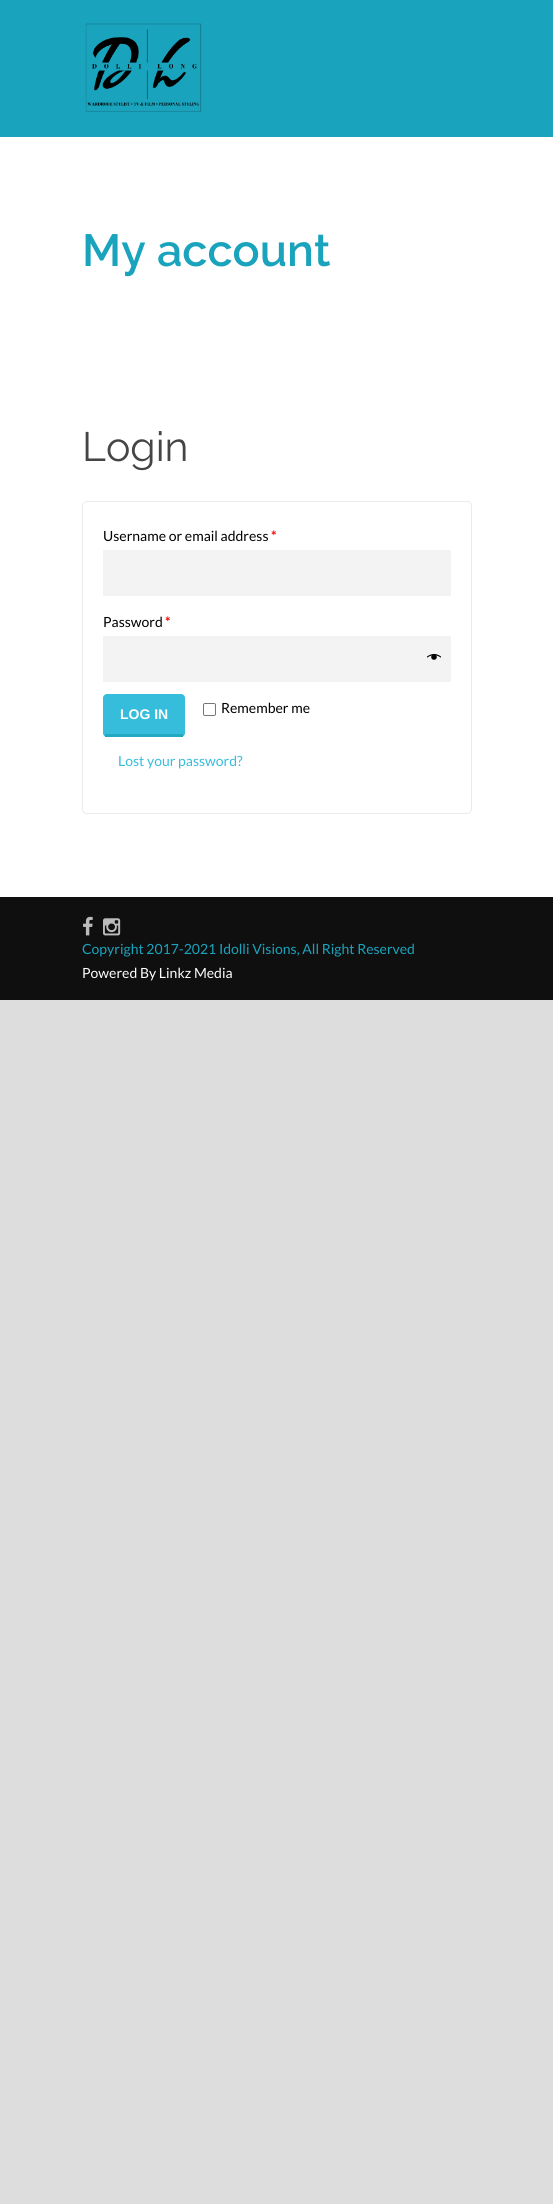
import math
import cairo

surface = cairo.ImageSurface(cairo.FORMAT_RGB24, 553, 2204)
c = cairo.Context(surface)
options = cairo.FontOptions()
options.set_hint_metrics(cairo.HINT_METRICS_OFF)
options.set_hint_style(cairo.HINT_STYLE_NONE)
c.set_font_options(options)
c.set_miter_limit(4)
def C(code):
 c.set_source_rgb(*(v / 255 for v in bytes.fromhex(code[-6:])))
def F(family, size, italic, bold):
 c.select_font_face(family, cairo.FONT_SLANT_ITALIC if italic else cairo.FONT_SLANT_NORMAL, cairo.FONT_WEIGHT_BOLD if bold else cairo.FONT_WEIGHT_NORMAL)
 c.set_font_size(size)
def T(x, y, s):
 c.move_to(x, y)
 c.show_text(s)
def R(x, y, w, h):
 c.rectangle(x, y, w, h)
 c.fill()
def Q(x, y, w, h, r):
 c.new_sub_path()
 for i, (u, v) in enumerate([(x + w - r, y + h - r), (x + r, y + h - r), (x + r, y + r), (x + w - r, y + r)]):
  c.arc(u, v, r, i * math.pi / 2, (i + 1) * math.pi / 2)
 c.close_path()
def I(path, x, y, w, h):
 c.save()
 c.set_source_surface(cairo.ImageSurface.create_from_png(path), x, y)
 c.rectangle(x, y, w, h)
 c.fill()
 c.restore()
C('dddddd')
c.paint()
C('ffffff')
R(0,137,553,760)
C('1aa3bc')
R(0,0,553,137)
I('1.png',85,23,117,89)
F('Raleway SemiBold',45,0,0)
T(82,266,'My account')
F('Raleway',41,0,0)
C('454545')
T(82,461,'Login')
Q(82.5,501.5,389,312,4.5)
C('ebebeb')
c.set_line_width(1)
c.stroke()
F('Lato',14,0,0)
C('000000')
T(103,541,'Username or email address')
F('Lato',14,0,1)
C('ff0000')
T(271,541,'*')
C('f3f3f3')
R(103,550,348,46)
F('Lato',14,0,0)
C('000000')
T(103,627,'Password')
F('Lato',14,0,1)
C('ff0000')
T(165,627,'*')
C('f3f3f3')
R(103,636,348,46)
I('2.png',427,653,14,7)
C('36bddb')
Q(103,694,82,43,4)
c.fill()
C('20a9c1')
R(105,734,78,3)
F('Liberation Sans',14,0,1)
C('ffffff')
T(120,719,'LOG IN')
Q(203.5,703.5,12,12,1.5)
C('767676')
c.stroke()
F('Lato',14,0,0)
C('000000')
T(221,713,'Remember me')
C('36bddb')
T(118,766,'Lost your password?')
C('0f0f0f')
R(0,897,553,103)
I('3.png',83,916,10,20)
I('4.png',103,918,18,18)
C('1aa3bc')
T(82,954,'Copyright 2017-2021 Idolli Visions, All Right Reserved')
C('ffffff')
T(82,978,'Powered By Linkz Media')
surface.write_to_png('o.png')
